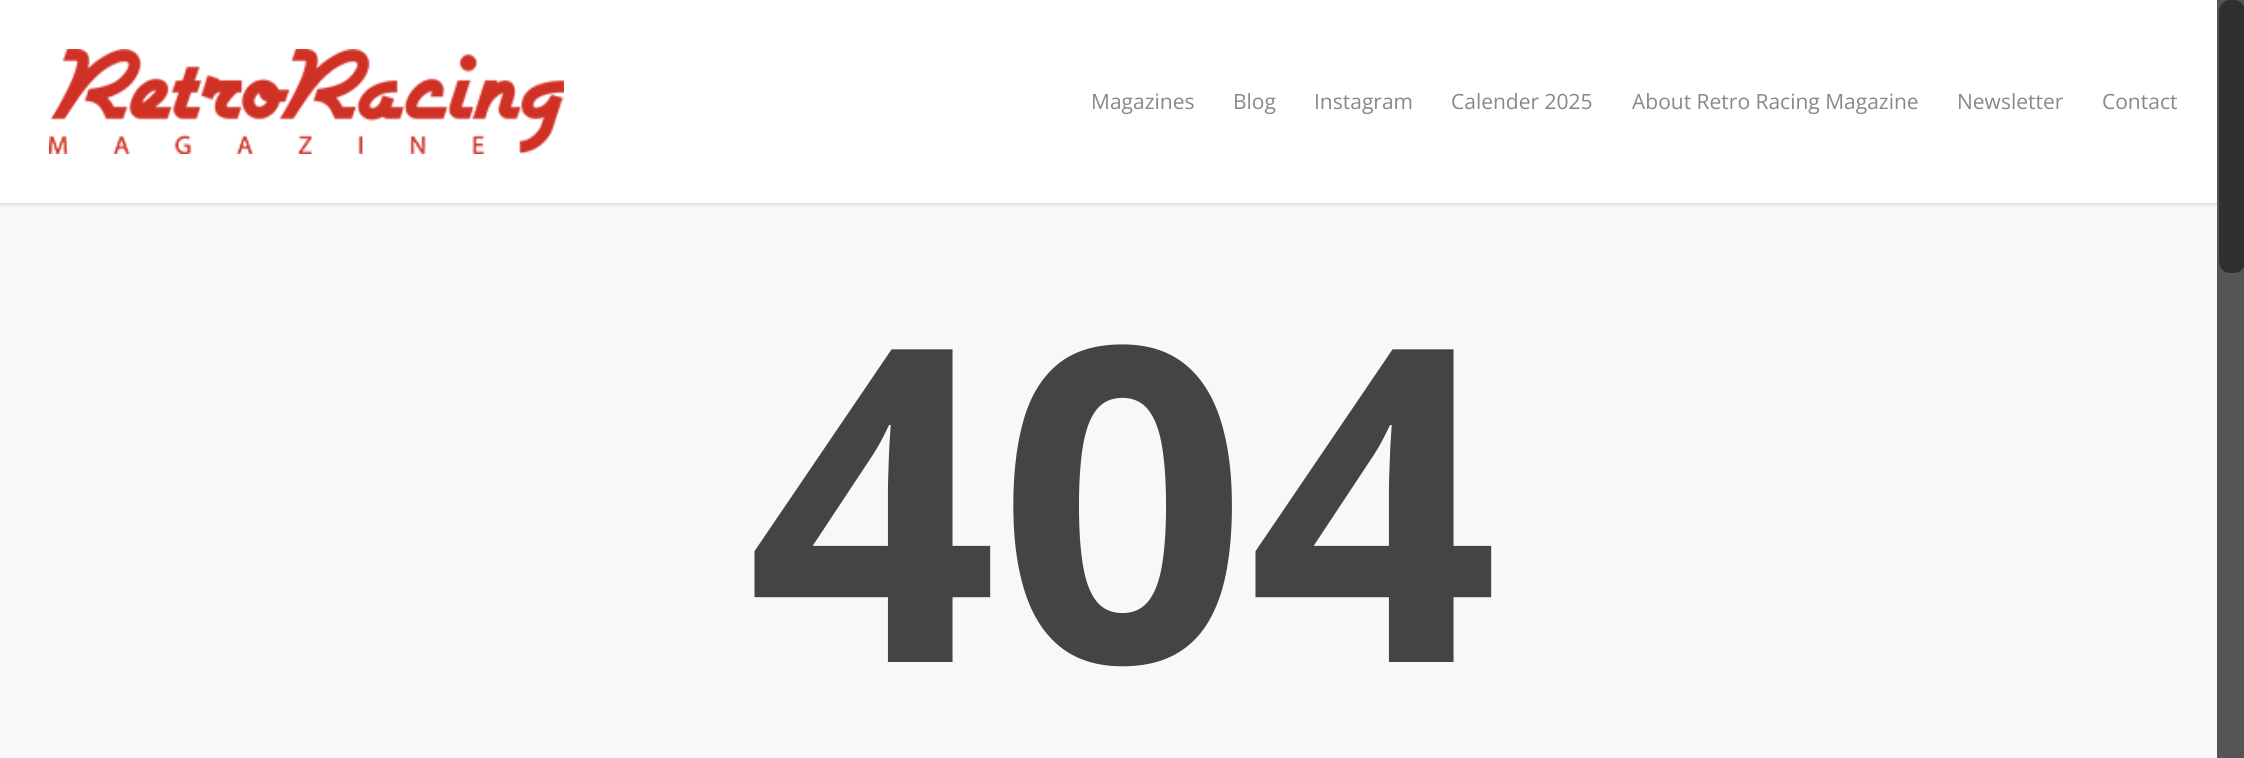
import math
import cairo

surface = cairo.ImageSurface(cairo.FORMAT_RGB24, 2244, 758)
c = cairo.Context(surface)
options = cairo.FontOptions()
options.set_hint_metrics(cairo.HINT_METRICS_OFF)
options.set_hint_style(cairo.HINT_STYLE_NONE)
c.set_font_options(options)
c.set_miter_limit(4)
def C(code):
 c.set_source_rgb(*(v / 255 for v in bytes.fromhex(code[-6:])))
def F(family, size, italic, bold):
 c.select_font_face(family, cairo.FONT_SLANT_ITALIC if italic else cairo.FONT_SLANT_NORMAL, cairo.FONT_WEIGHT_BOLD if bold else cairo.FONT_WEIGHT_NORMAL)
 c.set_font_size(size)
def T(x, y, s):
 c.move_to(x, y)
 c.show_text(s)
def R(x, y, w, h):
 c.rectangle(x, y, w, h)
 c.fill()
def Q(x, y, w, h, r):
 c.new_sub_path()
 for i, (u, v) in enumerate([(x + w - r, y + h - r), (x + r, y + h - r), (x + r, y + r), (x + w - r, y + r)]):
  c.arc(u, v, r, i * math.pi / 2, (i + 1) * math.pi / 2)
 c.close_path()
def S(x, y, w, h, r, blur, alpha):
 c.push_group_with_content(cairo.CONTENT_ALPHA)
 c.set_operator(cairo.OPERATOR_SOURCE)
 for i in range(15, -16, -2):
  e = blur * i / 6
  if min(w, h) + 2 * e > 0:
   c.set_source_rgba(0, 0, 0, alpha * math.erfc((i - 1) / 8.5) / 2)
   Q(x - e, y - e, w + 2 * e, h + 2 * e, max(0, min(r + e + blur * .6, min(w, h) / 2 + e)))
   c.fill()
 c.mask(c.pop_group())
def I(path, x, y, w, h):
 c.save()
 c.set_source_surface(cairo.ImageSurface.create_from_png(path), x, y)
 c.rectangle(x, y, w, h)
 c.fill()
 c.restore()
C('f8f8f8')
c.paint()
C('000000')
S(0,0,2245,203,0,2.5,.22)
C('ffffff')
R(0,0,2217,203)
I('1.png',49,49,515,105)
F('Open Sans',21,0,0)
C('888888')
T(1091,109,'Magazines')
T(1233,109,'Blog')
T(1314,109,'Instagram')
T(1451,109,'Calender 2025')
T(1632,109,'About Retro Racing Magazine')
T(1957,109,'Newsletter')
T(2102,109,'Contact')
C('555555')
R(2217,0,27,758)
C('303030')
Q(2219,0,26,273,11)
c.fill()
F('Open Sans',438,0,1)
C('444444')
T(747,662,'404')
surface.write_to_png('o.png')
